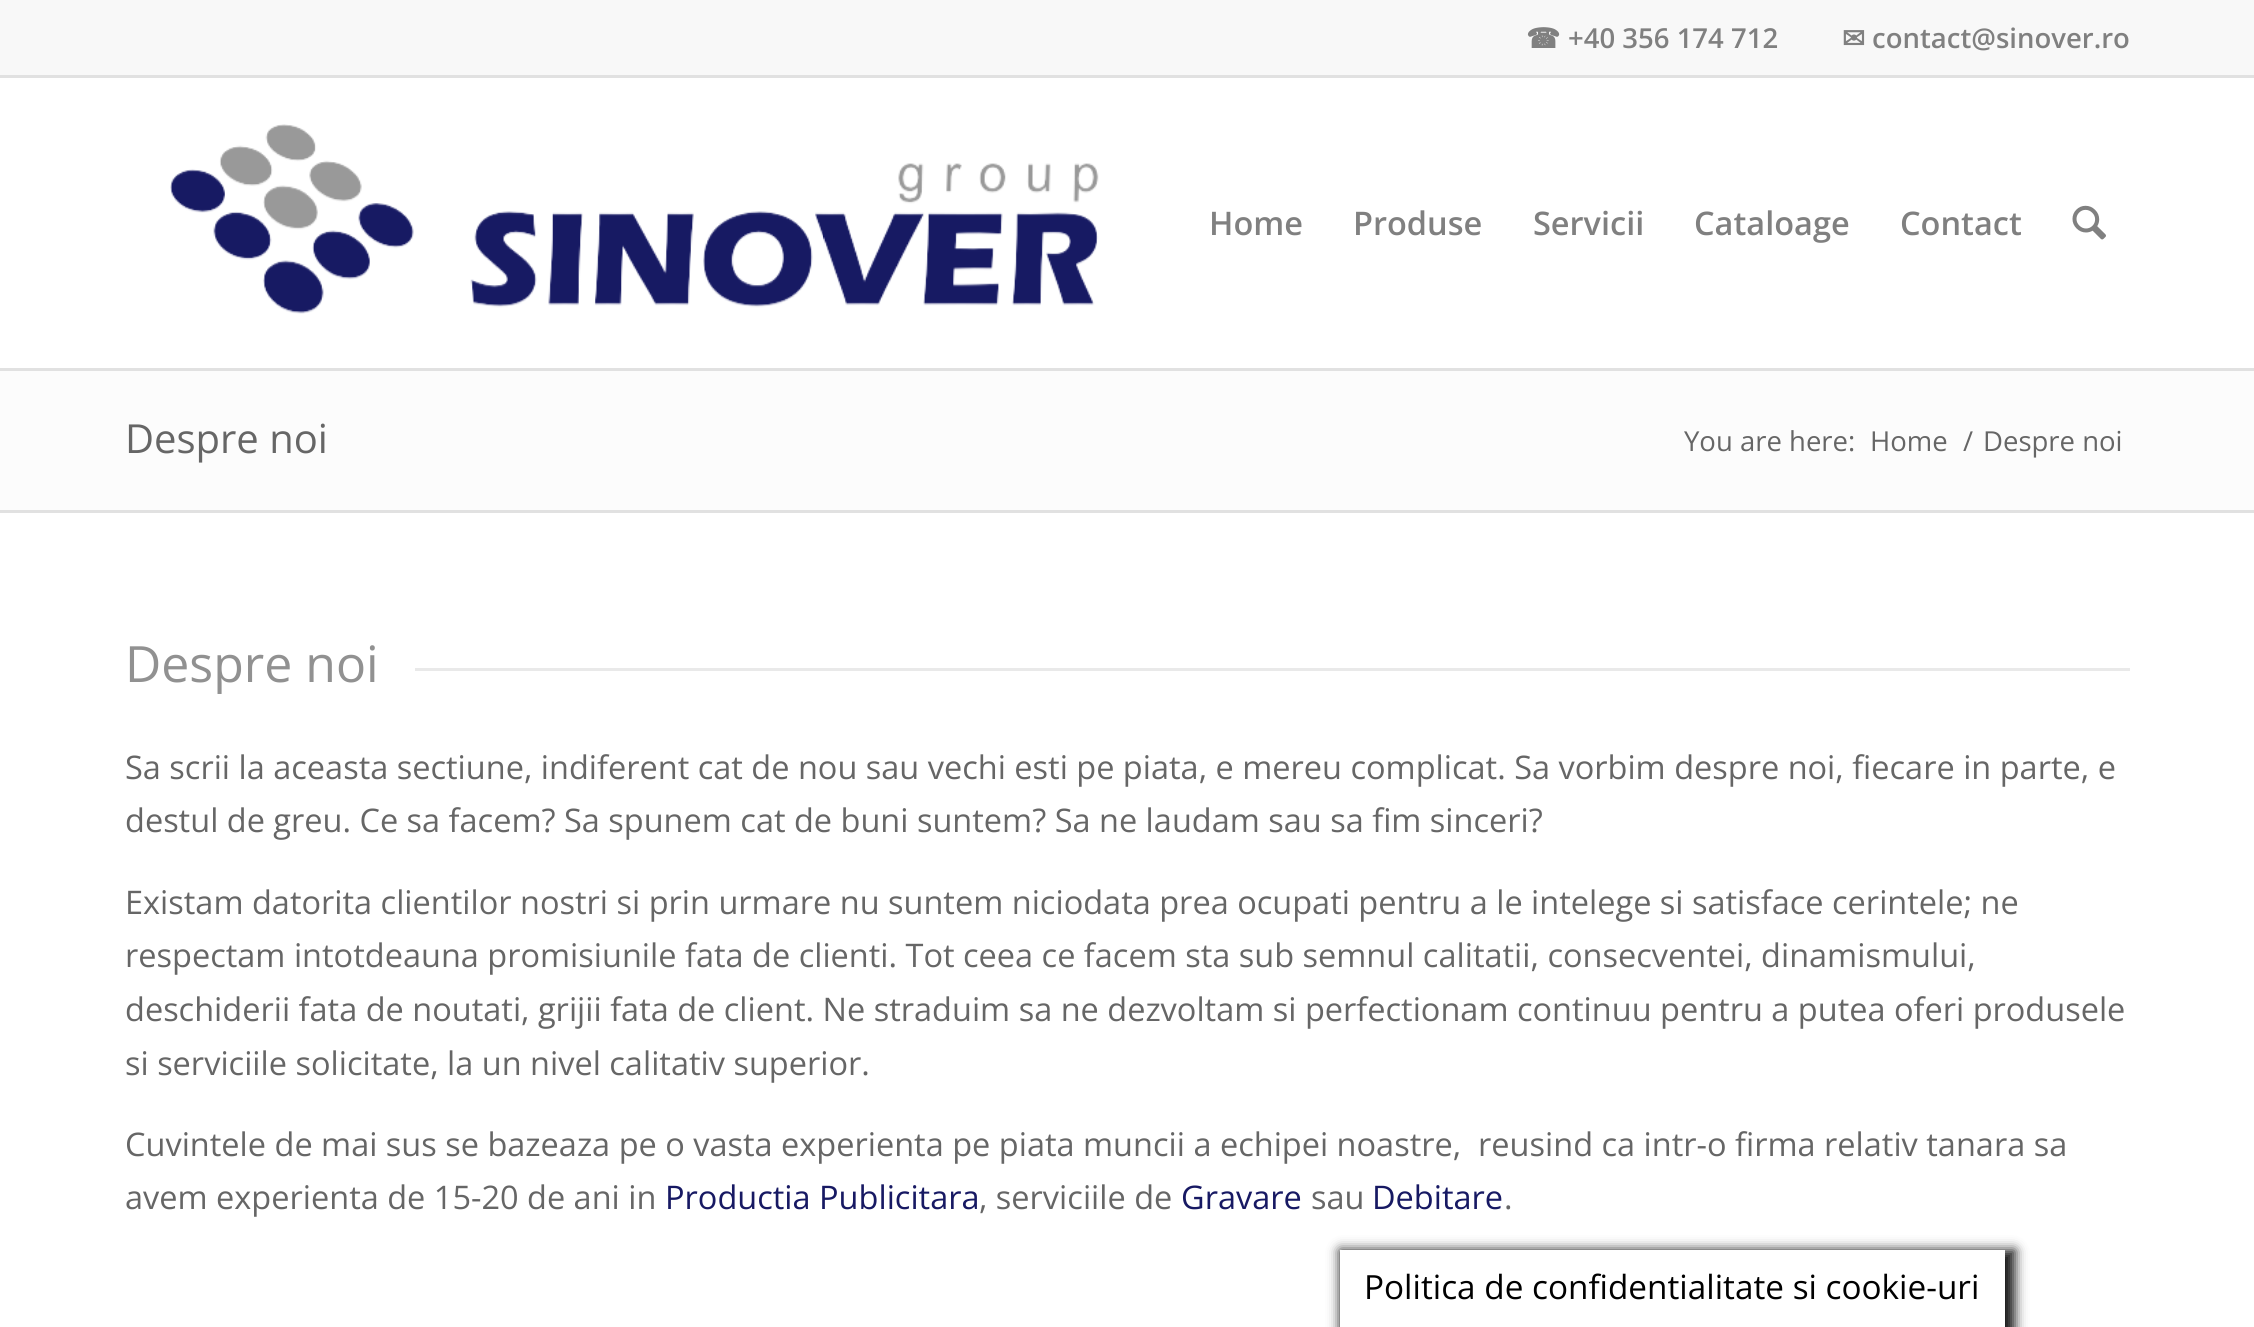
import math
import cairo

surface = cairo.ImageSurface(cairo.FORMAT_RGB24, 2254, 1327)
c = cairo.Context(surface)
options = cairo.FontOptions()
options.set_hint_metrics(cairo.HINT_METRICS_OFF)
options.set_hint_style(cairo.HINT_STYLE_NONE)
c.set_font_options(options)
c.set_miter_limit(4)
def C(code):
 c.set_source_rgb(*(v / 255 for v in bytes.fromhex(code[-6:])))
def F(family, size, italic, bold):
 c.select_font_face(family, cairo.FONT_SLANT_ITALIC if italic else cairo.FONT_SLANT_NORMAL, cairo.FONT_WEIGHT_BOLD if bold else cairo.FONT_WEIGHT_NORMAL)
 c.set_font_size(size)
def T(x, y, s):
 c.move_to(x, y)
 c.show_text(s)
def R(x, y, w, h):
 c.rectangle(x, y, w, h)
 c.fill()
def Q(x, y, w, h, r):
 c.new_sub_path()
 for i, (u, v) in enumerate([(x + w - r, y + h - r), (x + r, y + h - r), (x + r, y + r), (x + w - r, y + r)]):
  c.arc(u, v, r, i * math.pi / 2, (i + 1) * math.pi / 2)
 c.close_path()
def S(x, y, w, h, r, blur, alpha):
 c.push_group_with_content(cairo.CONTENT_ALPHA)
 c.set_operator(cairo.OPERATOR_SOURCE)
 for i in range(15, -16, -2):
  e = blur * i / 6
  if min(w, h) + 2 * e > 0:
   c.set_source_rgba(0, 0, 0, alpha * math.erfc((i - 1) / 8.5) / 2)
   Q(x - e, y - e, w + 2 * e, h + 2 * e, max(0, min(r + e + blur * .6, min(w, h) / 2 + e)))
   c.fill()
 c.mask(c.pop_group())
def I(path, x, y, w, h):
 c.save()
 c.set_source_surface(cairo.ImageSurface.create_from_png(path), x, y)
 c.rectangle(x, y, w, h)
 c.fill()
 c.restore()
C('ffffff')
c.paint()
C('f8f8f8')
R(0,0,2254,75)
C('e1e1e1')
R(0,75,2254,3)
F('DejaVu Sans',27.5,0,1)
C('808080')
T(1526,48,'☎')
F('Open Sans SemiBold',27.5,0,0)
T(1568,48,'+40 356 174 712')
F('DejaVu Sans',27.5,0,1)
T(1842,48,'✉')
F('Open Sans SemiBold',27.5,0,0)
T(1872,48,'contact@sinover.ro')
C('e1e1e1')
R(0,368,2254,3)
I('1.png',170,124,929,190)
F('Open Sans SemiBold',32.5,0,0)
C('808080')
T(1209,235,'Home')
T(1353,235,'Produse')
T(1533,235,'Servicii')
T(1694,235,'Cataloage')
T(1900,235,'Contact')
I('2.png',2072,205,34,35)
C('fcfcfc')
R(0,371,2254,139)
F('Open Sans',40,0,0)
C('666666')
T(125,453,'Despre noi')
F('Open Sans',27.5,0,0)
T(1684,451,'You are here:')
T(1870,451,'Home')
T(1963,451,'/')
T(1983,451,'Despre noi')
C('e1e1e1')
R(0,510,2254,3)
F('Open Sans',50,0,0)
C('919191')
T(125,682,'Despre noi')
C('e9e9e9')
R(415,668,1715,3)
F('Open Sans',32.5,0,0)
C('666666')
T(125,779,'Sa scrii la aceasta sectiune, indiferent cat de nou sau vechi esti pe piata, e mereu complicat. Sa vorbim despre noi, fiecare in parte, e')
T(125,832,'destul de greu. Ce sa facem? Sa spunem cat de buni suntem? Sa ne laudam sau sa fim sinceri?')
T(125,914,'Existam datorita clientilor nostri si prin urmare nu suntem niciodata prea ocupati pentru a le intelege si satisface cerintele; ne')
T(125,967,'respectam intotdeauna promisiunile fata de clienti. Tot ceea ce facem sta sub semnul calitatii, consecventei, dinamismului,')
T(125,1021,'deschiderii fata de noutati, grijii fata de client. Ne straduim sa ne dezvoltam si perfectionam continuu pentru a putea oferi produsele')
T(125,1075,'si serviciile solicitate, la un nivel calitativ superior.')
T(125,1156,'Cuvintele de mai sus se bazeaza pe o vasta experienta pe piata muncii a echipei noastre,  reusind ca intr-o firma relativ tanara sa')
T(125,1209,'avem experienta de 15-20 de ani in')
C('171963')
T(665,1209,'Productia Publicitara')
C('666666')
T(979,1209,', serviciile de')
C('171963')
T(1181,1209,'Gravare')
C('666666')
T(1311,1209,'sau')
C('171963')
T(1372,1209,'Debitare')
C('666666')
T(1504,1209,'.')
c.save()
c.set_fill_rule(cairo.FILL_RULE_EVEN_ODD)
c.new_path()
c.move_to(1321,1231)
c.line_to(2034,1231)
c.line_to(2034,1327)
c.line_to(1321,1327)
c.close_path()
c.move_to(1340,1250)
c.line_to(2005,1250)
c.line_to(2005,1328)
c.line_to(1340,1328)
c.close_path()
c.clip()
C('161616')
S(1340,1250,675,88,0,6,1)
c.restore()
F('Open Sans',33.3,0,0)
C('000000')
T(1364,1299,'Politica de confidentialitate si cookie-uri')
surface.write_to_png('o.png')
